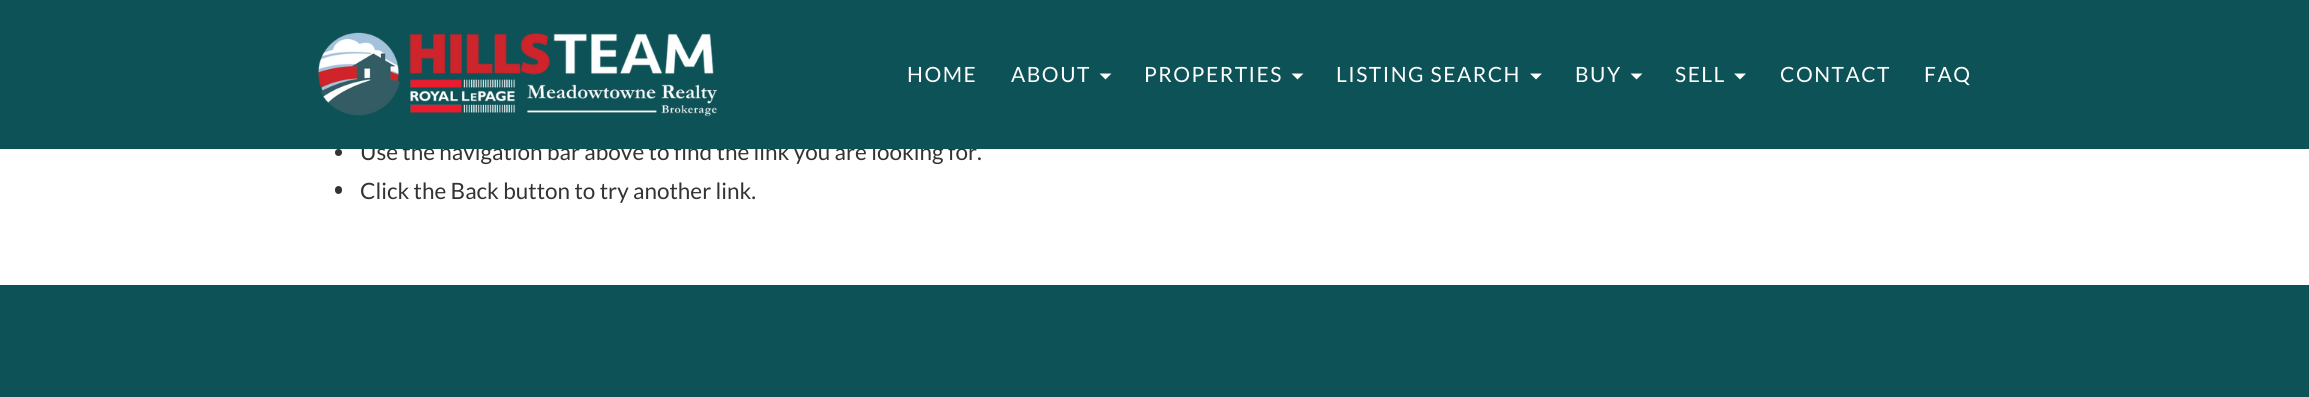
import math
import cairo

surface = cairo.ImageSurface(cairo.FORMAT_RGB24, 2309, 397)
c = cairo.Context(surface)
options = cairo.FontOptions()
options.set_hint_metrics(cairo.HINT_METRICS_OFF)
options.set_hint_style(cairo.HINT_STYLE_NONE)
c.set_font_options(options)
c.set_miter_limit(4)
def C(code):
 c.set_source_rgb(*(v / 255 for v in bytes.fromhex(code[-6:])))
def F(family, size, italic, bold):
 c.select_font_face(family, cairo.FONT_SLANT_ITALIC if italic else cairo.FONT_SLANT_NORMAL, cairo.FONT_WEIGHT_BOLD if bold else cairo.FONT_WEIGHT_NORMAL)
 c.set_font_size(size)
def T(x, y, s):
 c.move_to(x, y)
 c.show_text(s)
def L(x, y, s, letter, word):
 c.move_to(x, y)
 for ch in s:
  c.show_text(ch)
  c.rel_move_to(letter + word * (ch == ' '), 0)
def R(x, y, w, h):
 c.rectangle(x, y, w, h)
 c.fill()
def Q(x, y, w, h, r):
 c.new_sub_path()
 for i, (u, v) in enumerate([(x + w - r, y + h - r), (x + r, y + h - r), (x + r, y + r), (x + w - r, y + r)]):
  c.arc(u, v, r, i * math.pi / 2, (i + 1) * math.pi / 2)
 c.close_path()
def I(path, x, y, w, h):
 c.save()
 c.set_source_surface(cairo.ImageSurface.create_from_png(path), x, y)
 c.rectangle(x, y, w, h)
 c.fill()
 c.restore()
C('ffffff')
c.paint()
F('Lato',22.5,0,0)
C('333333')
T(360,160,'Use the navigation bar above to find the link you are looking for.')
C('0d5257')
R(0,0,2309,149)
I('1.png',318,32,399,85)
F('Lato',21,0,0)
C('ffffff')
L(907,82,'HOME',1.5,0)
L(1011,82,'ABOUT',1.5,0)
c.new_path()
c.move_to(1099.5,73.5)
c.line_to(1111.5,73.5)
c.line_to(1105.5,79.5)
c.close_path()
c.fill()
L(1144,82,'PROPERTIES',1.5,0)
c.new_path()
c.move_to(1291.5,73.5)
c.line_to(1303.5,73.5)
c.line_to(1297.5,79.5)
c.close_path()
c.fill()
L(1336,82,'LISTING SEARCH',1.5,0)
c.new_path()
c.move_to(1530,73.5)
c.line_to(1542,73.5)
c.line_to(1536,79.5)
c.close_path()
c.fill()
L(1575,82,'BUY',1.5,0)
c.new_path()
c.move_to(1630.5,73.5)
c.line_to(1642.5,73.5)
c.line_to(1636.5,79.5)
c.close_path()
c.fill()
L(1675,82,'SELL',1.5,0)
c.new_path()
c.move_to(1734,73.5)
c.line_to(1746,73.5)
c.line_to(1740,79.5)
c.close_path()
c.fill()
L(1780,82,'CONTACT',1.5,0)
L(1924,82,'FAQ',1.5,0)
C('333333')
c.new_path()
c.arc(338.5,152.5,3.5,0,2 * math.pi)
c.fill()
Q(335,186,7,8,3.5)
c.fill()
F('Lato',22.5,0,0)
T(360,199,'Click the Back button to try another link.')
C('0d5257')
R(0,285,2309,112)
surface.write_to_png('o.png')
